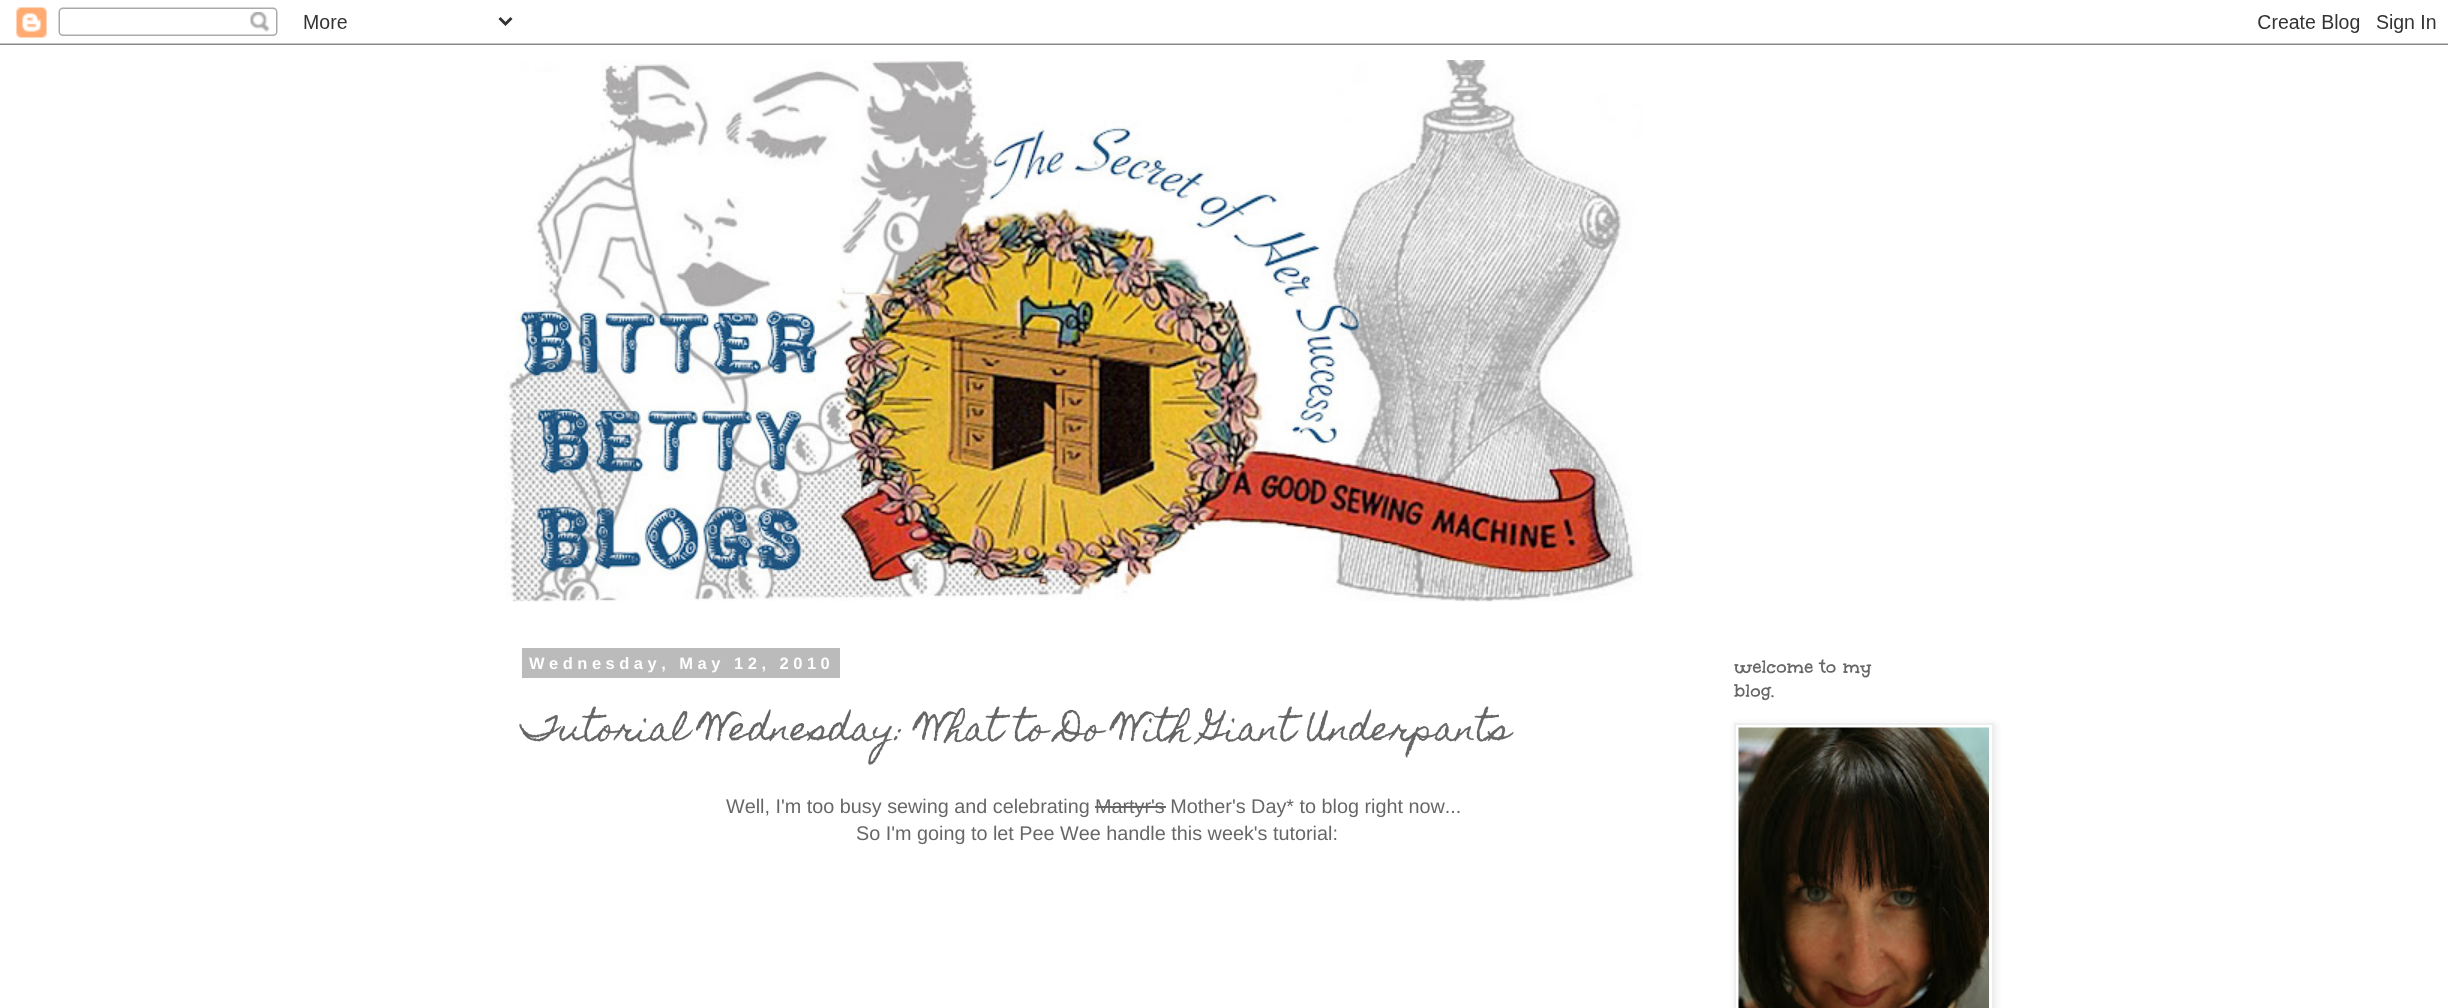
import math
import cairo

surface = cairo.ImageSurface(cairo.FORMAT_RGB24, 2448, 1008)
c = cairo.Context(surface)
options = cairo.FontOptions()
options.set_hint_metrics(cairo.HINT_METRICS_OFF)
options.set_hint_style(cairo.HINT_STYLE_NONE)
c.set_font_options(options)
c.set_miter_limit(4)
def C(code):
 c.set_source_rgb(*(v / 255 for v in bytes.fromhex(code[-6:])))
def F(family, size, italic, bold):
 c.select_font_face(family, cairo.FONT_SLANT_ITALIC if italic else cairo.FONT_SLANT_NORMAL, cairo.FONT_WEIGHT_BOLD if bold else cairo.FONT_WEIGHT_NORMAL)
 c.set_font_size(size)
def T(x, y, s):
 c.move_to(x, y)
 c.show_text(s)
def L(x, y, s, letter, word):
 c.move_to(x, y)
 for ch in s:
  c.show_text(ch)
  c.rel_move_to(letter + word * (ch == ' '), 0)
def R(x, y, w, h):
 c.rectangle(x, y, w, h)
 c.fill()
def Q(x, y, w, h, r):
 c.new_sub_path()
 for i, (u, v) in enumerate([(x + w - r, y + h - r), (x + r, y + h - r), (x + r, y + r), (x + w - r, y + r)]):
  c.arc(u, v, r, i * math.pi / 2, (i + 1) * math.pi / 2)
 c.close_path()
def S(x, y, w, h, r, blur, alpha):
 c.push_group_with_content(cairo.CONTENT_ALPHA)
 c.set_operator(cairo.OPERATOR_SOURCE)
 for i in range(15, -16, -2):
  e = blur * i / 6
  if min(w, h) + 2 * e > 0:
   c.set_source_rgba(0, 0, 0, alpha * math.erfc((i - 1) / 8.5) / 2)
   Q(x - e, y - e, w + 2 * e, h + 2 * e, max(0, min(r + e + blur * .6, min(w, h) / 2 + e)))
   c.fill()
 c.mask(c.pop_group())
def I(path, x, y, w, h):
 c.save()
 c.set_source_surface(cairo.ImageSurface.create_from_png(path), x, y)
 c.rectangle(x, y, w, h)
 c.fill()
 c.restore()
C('ffffff')
c.paint()
I('1.png',0,7,2448,38)
I('2.png',504,60,1138,542)
C('bbbbbb')
R(522,648,318,30)
F('Liberation Sans',16.5,0,1)
C('ffffff')
L(529,669,'Wednesday, May 12, 2010',4.5,0)
F('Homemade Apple',33,0,0)
C('666666')
T(522,740,'Tutorial Wednesday: What to Do With Giant Underpants')
F('Liberation Sans',19.8,0,0)
T(726,813,'Well, I\'m too busy sewing and celebrating')
T(1095,813,'Martyr\'s Mother\'s Day* to blog right now...')
R(1095,806,71,2)
T(856,840,'So I\'m going to let Pee Wee handle this week\'s tutorial:')
F('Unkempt',21,0,1)
T(1734,674,'welcome to my')
T(1734,698,'blog.')
C('000000')
S(1736,725,259,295,0,4,.1)
C('ffffff')
c.rectangle(1735,724,258,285)
c.fill_preserve()
C('eeeeee')
c.stroke()
I('3.png',1738,727,251,281)
surface.write_to_png('o.png')
